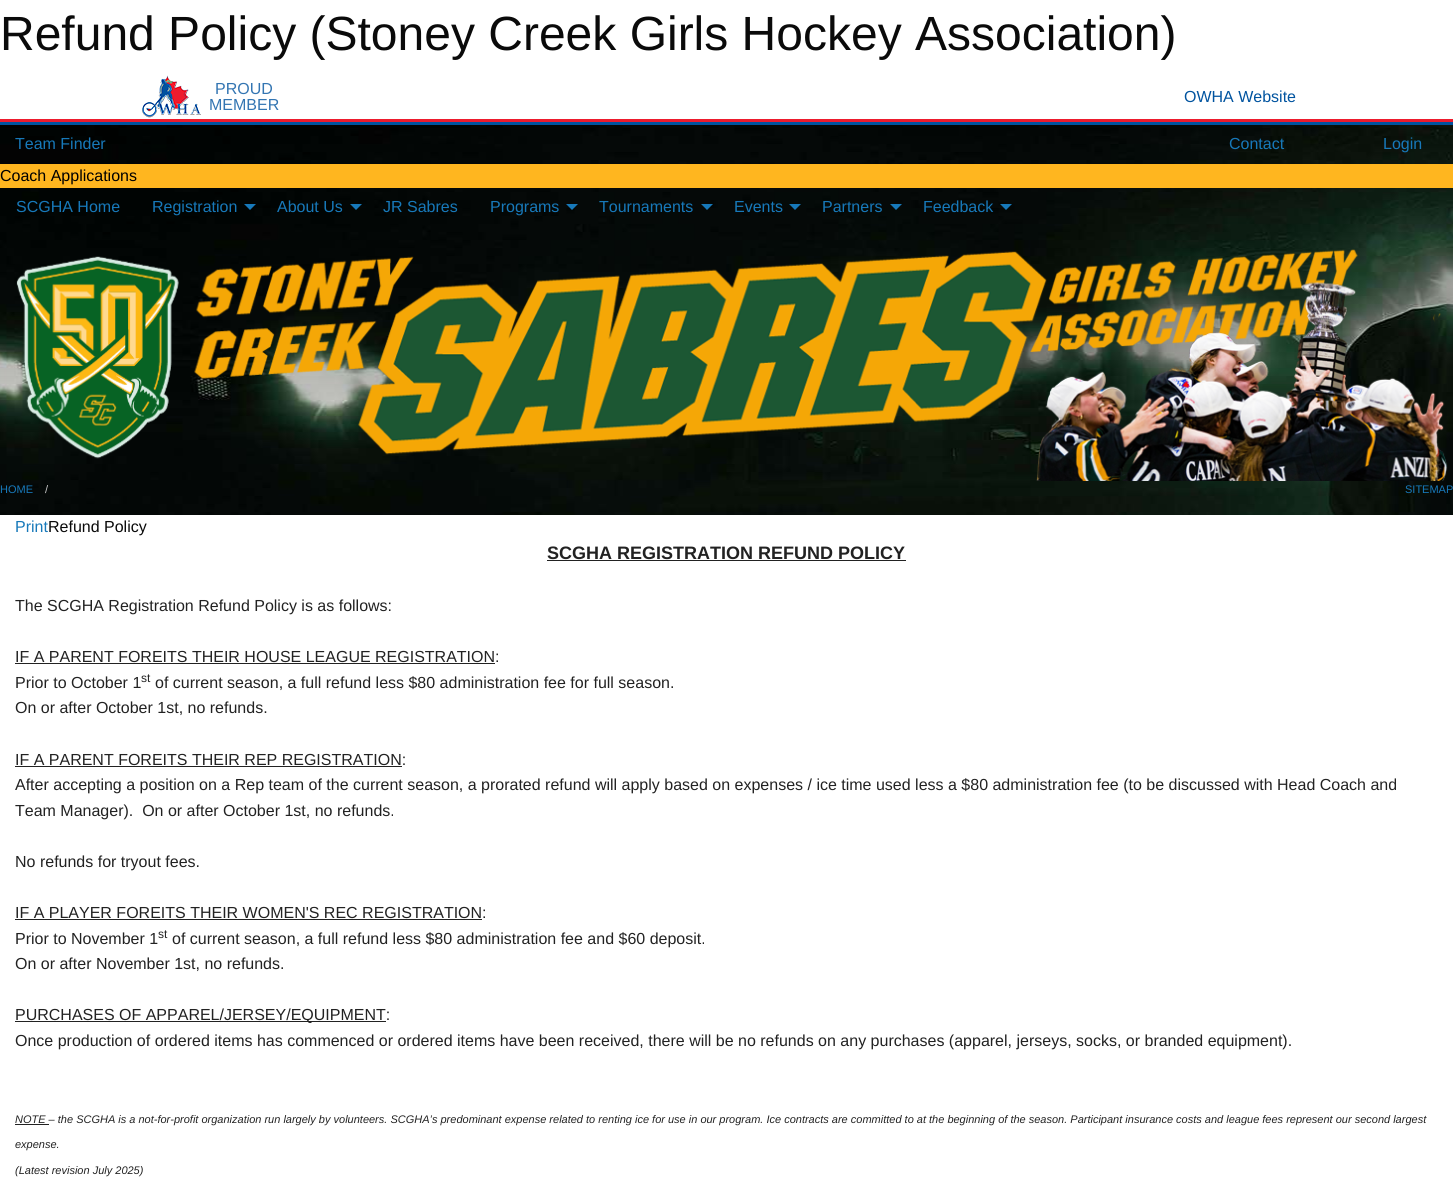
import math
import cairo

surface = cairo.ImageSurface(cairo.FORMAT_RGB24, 1453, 1179)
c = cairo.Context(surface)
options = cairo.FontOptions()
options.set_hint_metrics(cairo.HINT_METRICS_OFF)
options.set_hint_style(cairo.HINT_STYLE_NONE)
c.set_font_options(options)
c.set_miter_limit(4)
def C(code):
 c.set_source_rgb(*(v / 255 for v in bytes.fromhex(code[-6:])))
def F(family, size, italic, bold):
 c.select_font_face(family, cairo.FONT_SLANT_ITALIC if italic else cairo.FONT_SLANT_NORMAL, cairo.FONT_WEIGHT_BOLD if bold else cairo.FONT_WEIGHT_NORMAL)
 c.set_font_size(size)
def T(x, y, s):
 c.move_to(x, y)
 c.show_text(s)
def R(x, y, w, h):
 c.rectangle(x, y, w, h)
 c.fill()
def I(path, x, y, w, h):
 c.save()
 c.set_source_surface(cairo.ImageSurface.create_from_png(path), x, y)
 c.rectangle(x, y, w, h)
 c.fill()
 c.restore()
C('ffffff')
c.paint()
F('Liberation Sans',48,0,0)
C('0a0a0a')
T(0,50,'Refund Policy (Stoney Creek Girls Hockey Association)')
I('1.png',142,75,59,43)
F('Liberation Sans',16,0,0)
C('3375b2')
T(215,94,'PROUD')
T(209,110,'MEMBER')
C('00539f')
T(1184,102,'OWHA Website')
C('ed1b2d')
R(0,119,1453,3)
C('00539f')
R(0,122,1453,3)
I('2.png',0,125,1453,390)
C('1779ba')
T(15,149,'Team Finder')
T(1229,149,'Contact')
T(1383,149,'Login')
C('ffb61f')
R(0,164,1453,24)
C('000000')
T(0,181,'Coach Applications')
C('1779ba')
T(16,212,'SCGHA Home')
T(152,212,'Registration')
c.new_path()
c.move_to(244,204)
c.line_to(256,204)
c.line_to(250,210)
c.close_path()
c.fill()
T(277,212,'About Us')
c.new_path()
c.move_to(350,204)
c.line_to(362,204)
c.line_to(356,210)
c.close_path()
c.fill()
T(383,212,'JR Sabres')
T(490,212,'Programs')
c.new_path()
c.move_to(566,204)
c.line_to(578,204)
c.line_to(572,210)
c.close_path()
c.fill()
T(599,212,'Tournaments')
c.new_path()
c.move_to(701,204)
c.line_to(713,204)
c.line_to(707,210)
c.close_path()
c.fill()
T(734,212,'Events')
c.new_path()
c.move_to(789,204)
c.line_to(801,204)
c.line_to(795,210)
c.close_path()
c.fill()
T(822,212,'Partners')
c.new_path()
c.move_to(890,204)
c.line_to(902,204)
c.line_to(896,210)
c.close_path()
c.fill()
T(923,212,'Feedback')
c.new_path()
c.move_to(1000,204)
c.line_to(1012,204)
c.line_to(1006,210)
c.close_path()
c.fill()
I('3.png',16,249,1432,232)
F('Liberation Sans',11,0,0)
T(0,493,'HOME')
C('cacaca')
T(45,493,'/')
C('1779ba')
T(1405,493,'SITEMAP')
F('Liberation Sans',16,0,0)
T(15,532,'Print')
C('0a0a0a')
T(48,532,'Refund Policy')
F('Liberation Sans',18,0,1)
C('222222')
T(547,559,'SCGHA REGISTRATION REFUND POLICY')
R(547,560,359,1)
F('Liberation Sans',16,0,0)
T(15,611,'The SCGHA Registration Refund Policy is as follows:')
T(15,662,'IF A PARENT FOREITS THEIR HOUSE LEAGUE REGISTRATION:')
R(15,663,480,1)
T(15,688,'Prior to October 1')
F('Liberation Sans',12,0,0)
T(141,682,'st')
F('Liberation Sans',16,0,0)
T(155,688,'of current season, a full refund less $80 administration fee for full season.')
T(15,713,'On or after October 1st, no refunds.')
T(15,765,'IF A PARENT FOREITS THEIR REP REGISTRATION:')
R(15,766,387,1)
T(15,790,'After accepting a position on a Rep team of the current season, a prorated refund will apply based on expenses / ice time used less a $80 administration fee (to be discussed with Head Coach and')
T(15,816,'Team Manager).  On or after October 1st, no refunds.')
T(15,867,'No refunds for tryout fees.')
T(15,918,'IF A PLAYER FOREITS THEIR WOMEN\'S REC REGISTRATION:')
R(15,919,467,1)
T(15,944,'Prior to November 1')
F('Liberation Sans',12,0,0)
T(158,938,'st')
F('Liberation Sans',16,0,0)
T(172,944,'of current season, a full refund less $80 administration fee and $60 deposit.')
T(15,969,'On or after November 1st, no refunds.')
R(15,1021,371,1)
T(15,1020,'PURCHASES OF APPAREL/JERSEY/EQUIPMENT:')
T(15,1046,'Once production of ordered items has commenced or ordered items have been received, there will be no refunds on any purchases (apparel, jerseys, socks, or branded equipment).')
R(15,1124,34,1)
F('Liberation Sans',11,1,0)
T(15,1123,'NOTE – the SCGHA is a not-for-profit organization run largely by volunteers. SCGHA’s predominant expense related to renting ice for use in our program. Ice contracts are committed to at the beginning of the season. Participant insurance costs and league fees represent our second largest')
T(15,1148,'expense.')
T(15,1174,'(Latest revision July 2025)')
surface.write_to_png('o.png')
